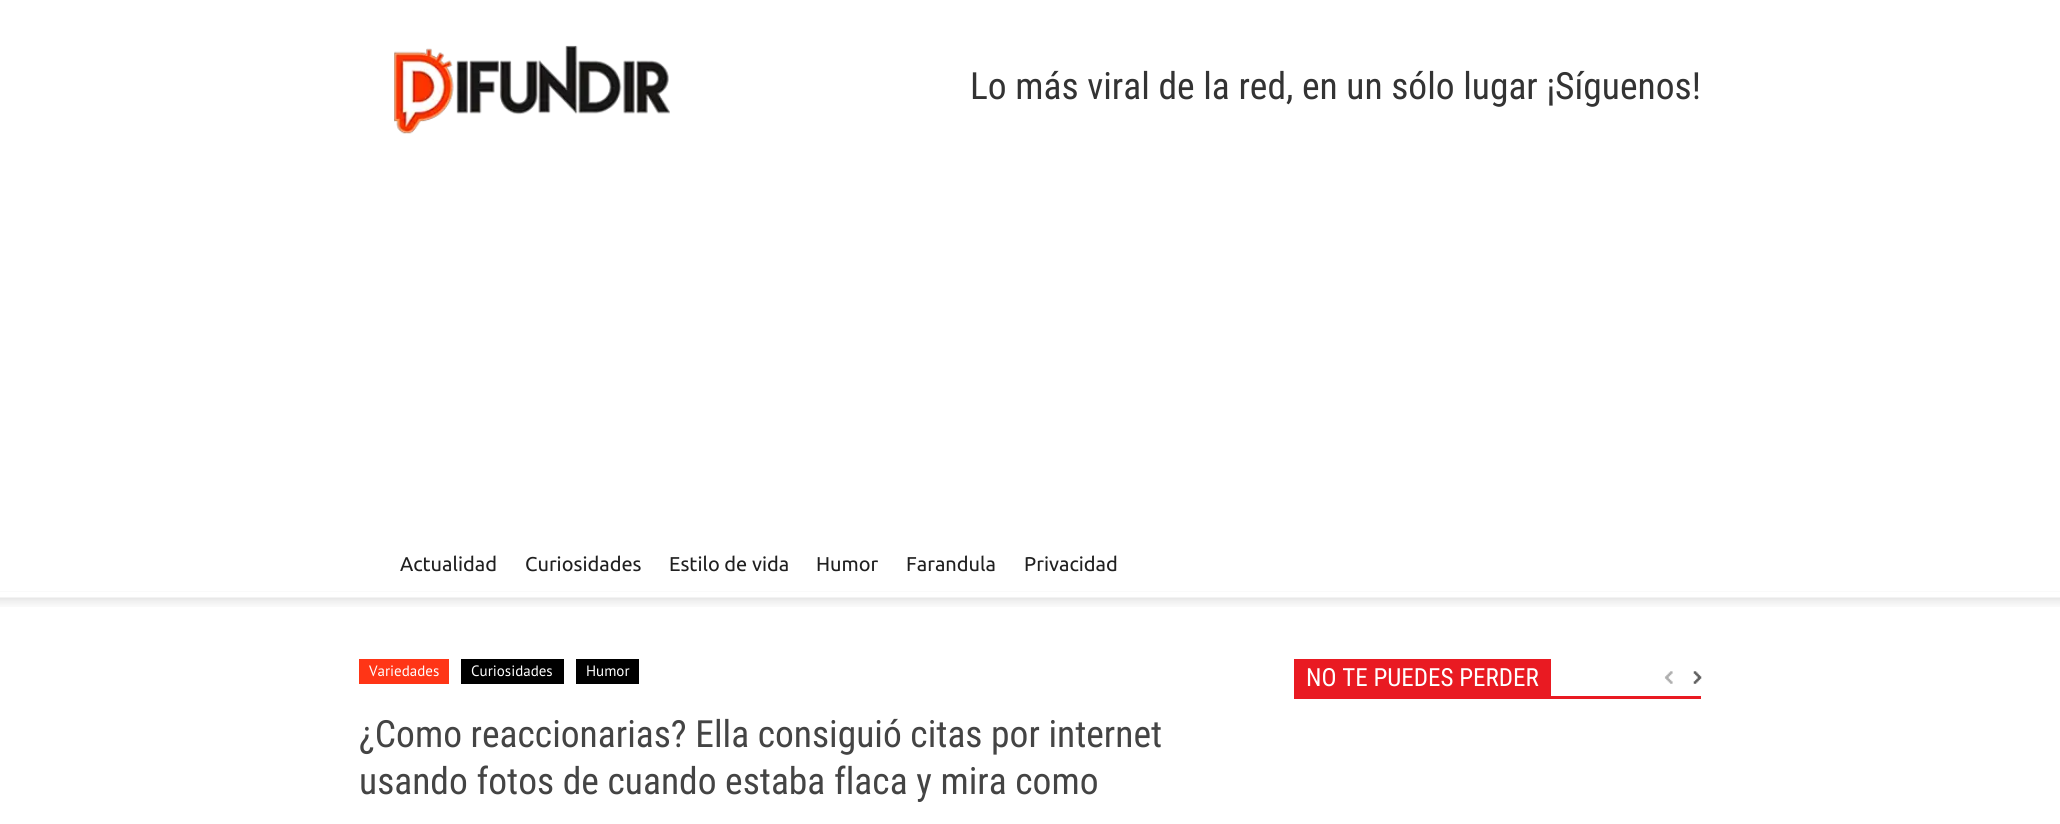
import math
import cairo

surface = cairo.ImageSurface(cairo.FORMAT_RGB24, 2060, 824)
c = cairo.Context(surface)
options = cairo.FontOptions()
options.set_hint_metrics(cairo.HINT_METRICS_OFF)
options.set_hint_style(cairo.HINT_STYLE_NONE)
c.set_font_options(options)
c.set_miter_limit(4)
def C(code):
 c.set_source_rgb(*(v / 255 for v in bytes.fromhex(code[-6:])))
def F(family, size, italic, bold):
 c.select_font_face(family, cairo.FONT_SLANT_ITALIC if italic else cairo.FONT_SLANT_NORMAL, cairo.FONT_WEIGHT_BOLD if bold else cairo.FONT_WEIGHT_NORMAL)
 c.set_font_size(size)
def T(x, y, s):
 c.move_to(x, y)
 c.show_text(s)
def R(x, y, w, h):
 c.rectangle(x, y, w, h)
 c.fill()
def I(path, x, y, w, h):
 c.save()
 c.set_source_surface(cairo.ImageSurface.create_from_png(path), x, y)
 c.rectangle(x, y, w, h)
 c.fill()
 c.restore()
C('ffffff')
c.paint()
I('1.png',394,45,276,89)
F('Roboto Condensed',37.5,0,0)
C('333333')
T(970,99,'Lo más viral de la red, en un sólo lugar ¡Síguenos!')
C('fafafa')
R(0,591,2060,1)
F('Ubuntu',20,0,0)
C('202020')
T(400,571,'Actualidad')
T(525,571,'Curiosidades')
T(669,571,'Estilo de vida')
T(816,571,'Humor')
T(906,571,'Farandula')
T(1024,571,'Privacidad')
I('2.png',0,597,2060,10)
C('ff3516')
R(359,659,90,25)
F('PT Sans',15,0,0)
C('ffffff')
T(369,676,'Variedades')
C('000000')
R(461,659,103,25)
C('ffffff')
T(471,676,'Curiosidades')
C('000000')
R(576,659,63,25)
C('ffffff')
T(586,676,'Humor')
F('Roboto Condensed',37.5,0,0)
C('444444')
T(359,747,'¿Como reaccionarias? Ella consiguió citas por internet')
T(359,794,'usando fotos de cuando estaba flaca y mira como')
C('e91a22')
R(1294,696,407,3)
R(1294,659,257,37)
F('Roboto Condensed',25,0,0)
C('ffffff')
T(1306,686,'NO TE PUEDES PERDER')
I('3.png',1664,671,9,13)
I('4.png',1693,671,9,13)
surface.write_to_png('o.png')
